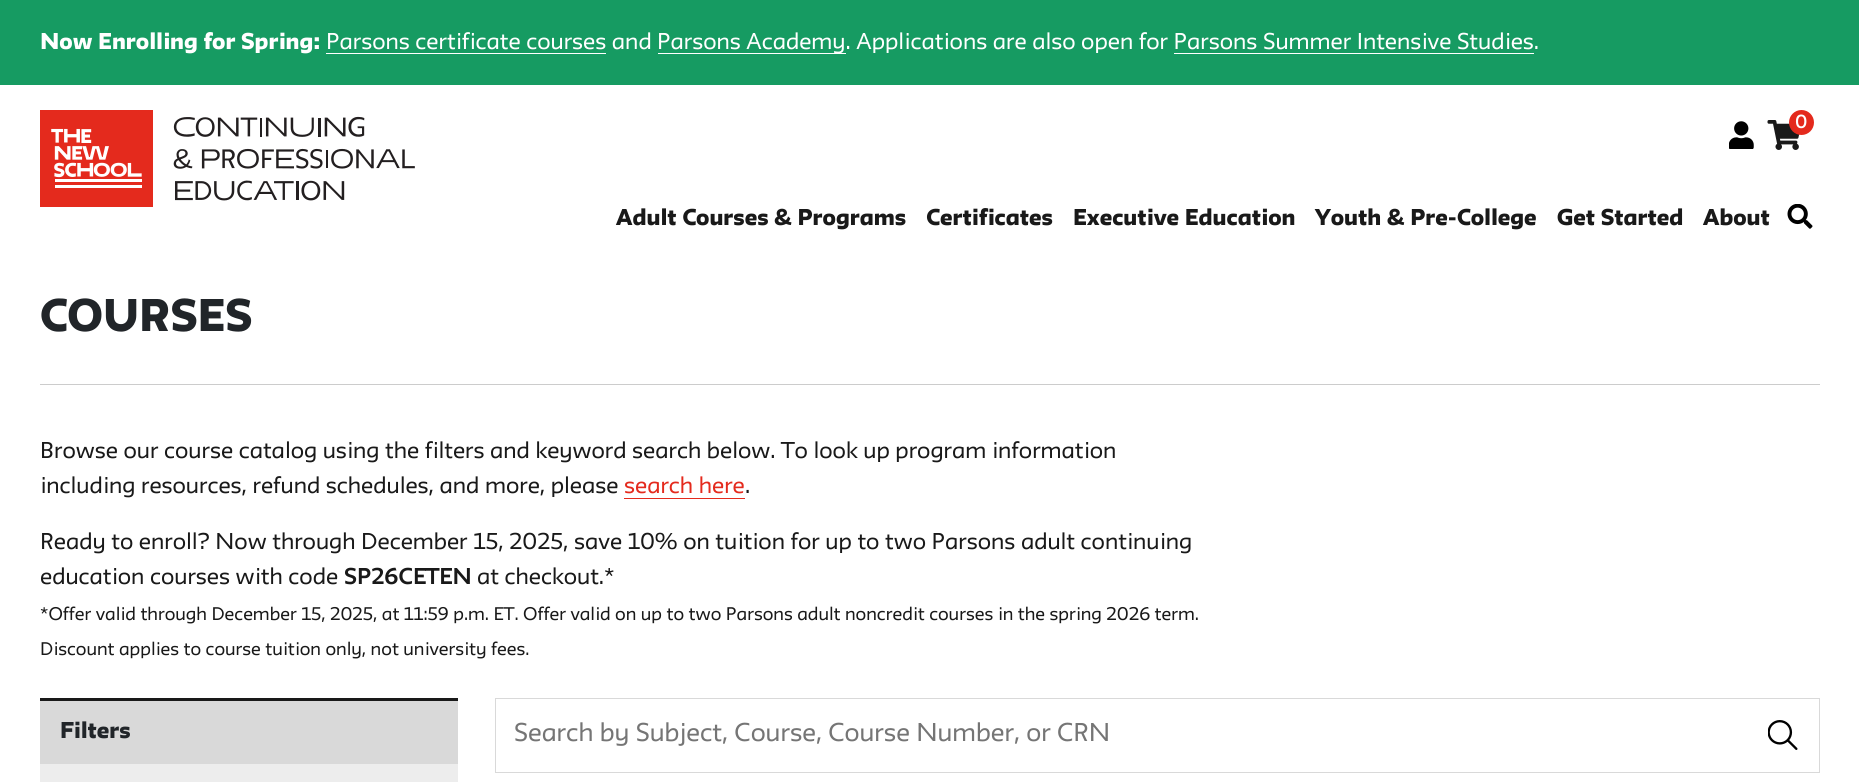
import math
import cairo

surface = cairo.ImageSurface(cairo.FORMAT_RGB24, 1859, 782)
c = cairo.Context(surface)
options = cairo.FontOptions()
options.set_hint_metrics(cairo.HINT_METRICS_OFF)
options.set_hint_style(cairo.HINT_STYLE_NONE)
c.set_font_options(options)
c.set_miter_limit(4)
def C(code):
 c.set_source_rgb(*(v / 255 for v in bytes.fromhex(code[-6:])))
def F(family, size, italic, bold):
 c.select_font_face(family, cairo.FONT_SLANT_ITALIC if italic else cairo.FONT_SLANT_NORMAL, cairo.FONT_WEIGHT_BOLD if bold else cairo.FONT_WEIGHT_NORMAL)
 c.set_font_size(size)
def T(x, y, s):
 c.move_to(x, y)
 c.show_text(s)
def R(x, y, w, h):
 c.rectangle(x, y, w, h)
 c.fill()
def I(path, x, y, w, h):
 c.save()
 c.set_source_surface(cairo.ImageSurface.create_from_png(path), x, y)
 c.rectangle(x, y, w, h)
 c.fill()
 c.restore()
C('ffffff')
c.paint()
C('169b62')
R(0,0,1859,85)
F('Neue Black',20,0,0)
C('ffffff')
T(40,49,'Now Enrolling for Spring:')
F('Neue',20,0,0)
T(326,49,'Parsons certificate courses and')
R(326,53,280,1)
R(658,53,188,1)
T(657,49,'Parsons Academy. Applications are also open for Parsons Summer Intensive Studies.')
R(1174,53,360,1)
C('191919')
T(40,458,'Browse our course catalog using the filters and keyword search below. To look up program information')
T(40,493,'including resources, refund schedules, and more, please')
C('e42a1d')
T(624,493,'search here')
R(624,498,121,1)
C('191919')
T(745,493,'.')
T(40,549,'Ready to enroll? Now through December 15, 2025, save 10% on tuition for up to two Parsons adult continuing')
T(40,584,'education courses with code')
F('Neue',20,0,1)
T(344,584,'SP26CETEN')
F('Neue',20,0,0)
T(477,584,'at checkout.*')
F('Neue',16,0,0)
T(40,620,'*Offer valid through December 15, 2025, at 11:59 p.m. ET. Offer valid on up to two Parsons adult noncredit courses in the spring 2026 term.')
T(40,655,'Discount applies to course tuition only, not university fees.')
R(40,698,418,3)
C('d9d9d9')
R(40,701,418,63)
F('Neue Black',20,0,0)
C('212529')
T(60,738,'Filters')
C('ededed')
R(40,764,418,18)
c.rectangle(495.5,698.5,1324,74)
C('d9d9d9')
c.set_line_width(1)
c.stroke()
F('Neue',22.5,0,0)
C('757575')
T(514,741,'Search by Subject, Course, Course Number, or CRN')
I('1.png',1768,720,30,30)
C('cccccc')
R(40,384,1780,1)
F('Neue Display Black',40,0,0)
C('212529')
T(40,331,'Courses')
I('2.png',40,110,375,97)
I('3.png',1729,121,25,28)
I('4.png',1767,120,33,30)
C('e42a1d')
c.arc(1801.5,122.5,12.5,0,2 * math.pi)
c.fill()
F('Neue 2',16,0,1)
C('ffffff')
T(1795,128,'0')
F('Neue Black',20,0,0)
C('191919')
T(616,225,'Adult Courses & Programs')
T(926,225,'Certificates')
T(1073,225,'Executive Education')
T(1315,225,'Youth & Pre-College')
T(1557,225,'Get Started')
T(1703,225,'About')
I('5.png',1787,204,26,25)
surface.write_to_png('o.png')
